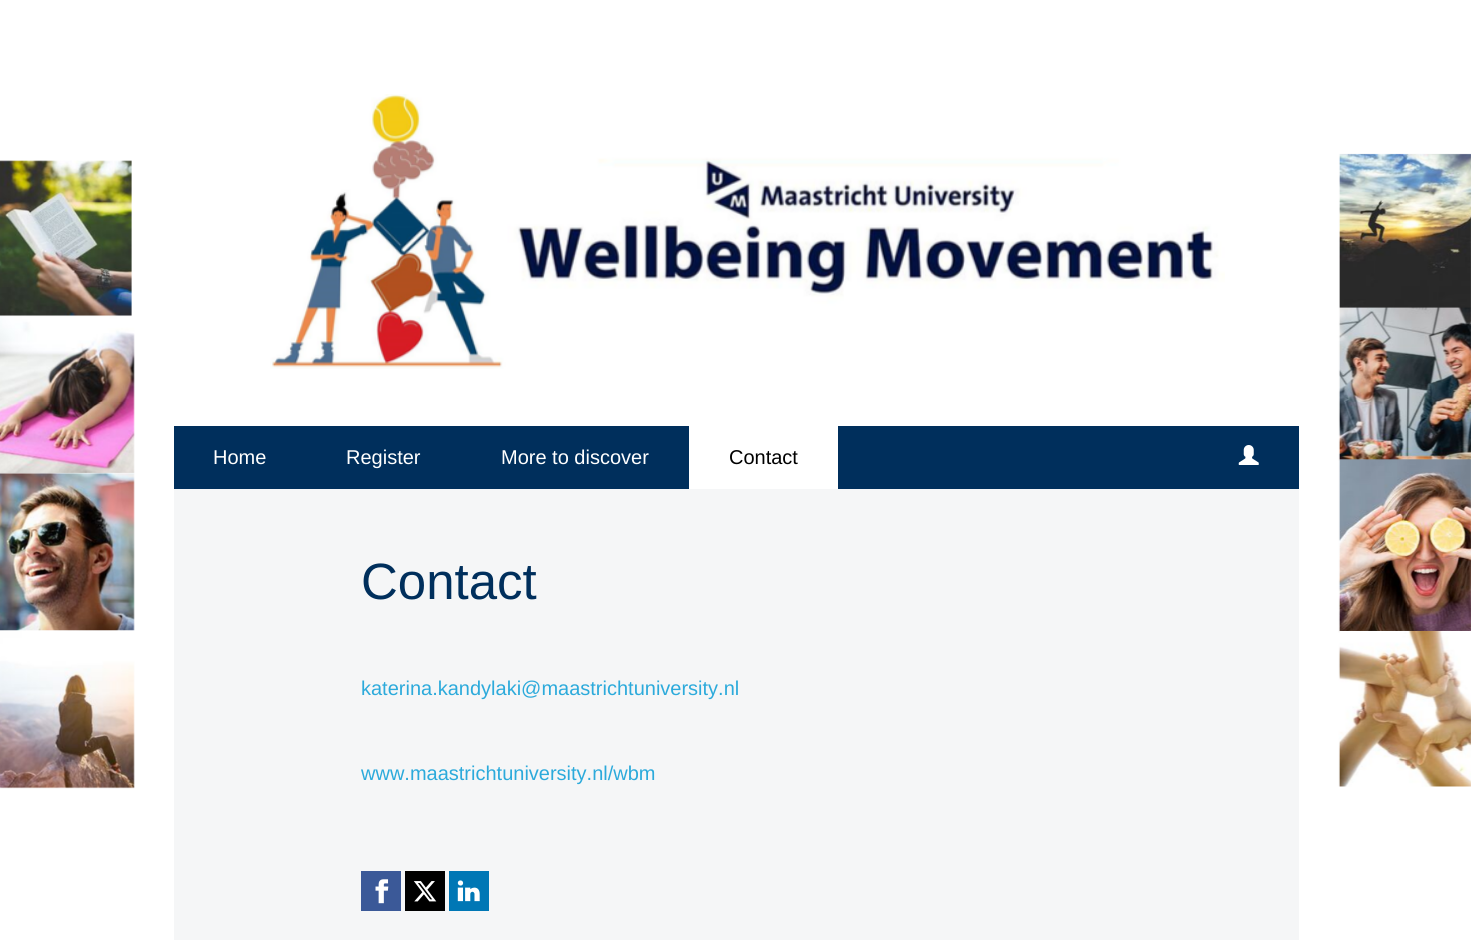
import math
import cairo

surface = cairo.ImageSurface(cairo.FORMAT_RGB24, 1471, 948)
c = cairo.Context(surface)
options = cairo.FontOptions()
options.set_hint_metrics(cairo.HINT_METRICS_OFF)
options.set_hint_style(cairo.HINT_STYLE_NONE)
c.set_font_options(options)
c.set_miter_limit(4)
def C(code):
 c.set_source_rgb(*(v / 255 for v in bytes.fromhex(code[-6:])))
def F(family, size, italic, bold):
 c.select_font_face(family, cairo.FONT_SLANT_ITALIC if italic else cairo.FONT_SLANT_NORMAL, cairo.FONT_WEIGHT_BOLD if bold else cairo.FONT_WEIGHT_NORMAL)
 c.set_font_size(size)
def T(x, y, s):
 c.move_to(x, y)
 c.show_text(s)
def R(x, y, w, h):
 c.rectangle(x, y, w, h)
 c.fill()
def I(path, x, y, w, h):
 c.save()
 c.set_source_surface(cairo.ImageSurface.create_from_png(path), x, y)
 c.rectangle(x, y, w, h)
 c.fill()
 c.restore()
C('ffffff')
c.paint()
I('1.png',0,153,1471,636)
I('2.png',270,94,955,275)
C('002f5c')
R(174,426,1125,63)
F('Liberation Sans',20,0,0)
C('ffffff')
T(213,464,'Home')
T(346,464,'Register')
T(501,464,'More to discover')
R(689,426,149,63)
C('000000')
T(729,464,'Contact')
I('3.png',1238,445,21,20)
C('f5f6f7')
R(174,489,1125,451)
F('Liberation Sans',51,0,0)
C('002f5c')
T(361,599,'Contact')
F('Liberation Sans',20,0,0)
C('2caadb')
T(361,695,'katerina.kandylaki@maastrichtuniversity.nl')
T(361,780,'www.maastrichtuniversity.nl/wbm')
C('3b5998')
R(361,871,40,40)
I('4.png',375,879,14,25)
C('000000')
R(405,871,40,40)
I('5.png',413,881,24,21)
C('0077b5')
R(449,871,40,40)
I('6.png',457,880,23,22)
surface.write_to_png('o.png')
